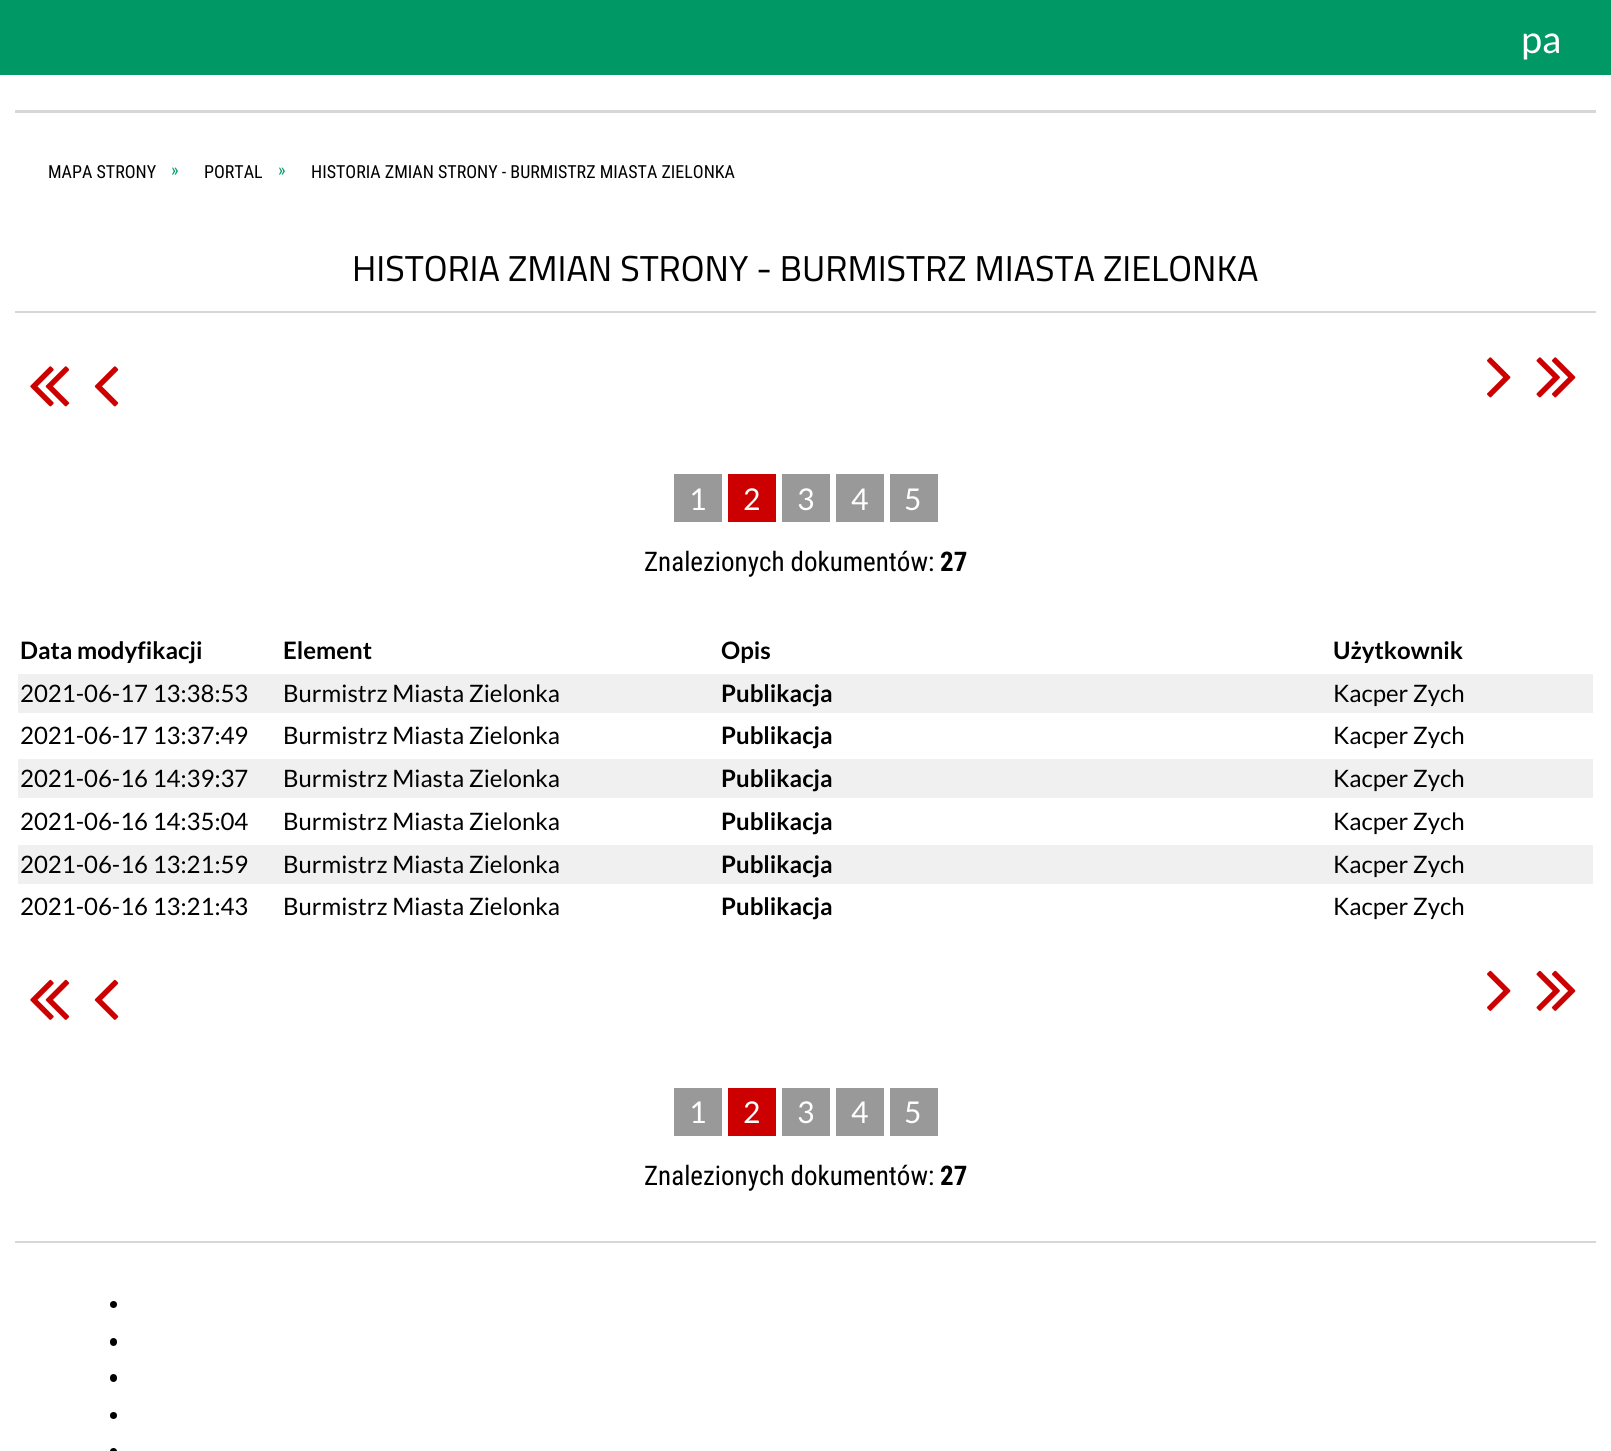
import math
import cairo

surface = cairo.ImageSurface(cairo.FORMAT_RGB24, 1611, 1451)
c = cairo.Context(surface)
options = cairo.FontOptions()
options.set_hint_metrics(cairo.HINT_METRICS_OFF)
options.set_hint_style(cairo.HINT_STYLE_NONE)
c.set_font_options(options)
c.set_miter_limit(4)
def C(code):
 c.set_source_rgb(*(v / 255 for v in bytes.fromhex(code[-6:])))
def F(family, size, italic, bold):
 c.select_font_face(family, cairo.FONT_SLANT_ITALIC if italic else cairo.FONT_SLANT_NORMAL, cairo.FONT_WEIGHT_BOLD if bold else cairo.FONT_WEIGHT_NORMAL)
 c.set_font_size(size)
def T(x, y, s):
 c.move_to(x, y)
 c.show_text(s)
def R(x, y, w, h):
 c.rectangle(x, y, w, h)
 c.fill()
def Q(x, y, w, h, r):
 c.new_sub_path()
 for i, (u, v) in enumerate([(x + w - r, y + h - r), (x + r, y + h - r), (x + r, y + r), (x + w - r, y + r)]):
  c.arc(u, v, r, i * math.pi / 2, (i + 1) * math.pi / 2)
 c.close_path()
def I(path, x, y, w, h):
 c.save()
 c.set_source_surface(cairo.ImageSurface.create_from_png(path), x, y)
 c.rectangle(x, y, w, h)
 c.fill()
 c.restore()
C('ffffff')
c.paint()
C('009966')
R(0,0,1611,75)
F('Lato',38,0,0)
C('ffffff')
T(1521,53,'pa')
C('d7d7d7')
R(15,110,1581,3)
F('Roboto Condensed',18,0,0)
C('000000')
T(48,178,'MAPA STRONY')
C('009966')
T(171,176,'»')
C('000000')
T(204,178,'PORTAL')
C('009966')
T(278,176,'»')
C('000000')
T(311,178,'HISTORIA ZMIAN STRONY - BURMISTRZ MIASTA ZIELONKA')
C('d7d7d7')
R(15,311,1581,2)
F('Cairo',36,0,0)
C('000000')
T(352,281,'HISTORIA ZMIAN STRONY - BURMISTRZ MIASTA ZIELONKA')
I('1.png',30,366,40,41)
I('2.png',94,366,25,41)
I('3.png',1487,357,24,41)
I('4.png',1536,357,40,41)
C('999999')
R(674,474,48,48)
F('Lato',30,0,0)
C('ffffff')
T(689,510,'1')
C('cc0000')
R(728,474,48,48)
C('ffffff')
T(743,510,'2')
C('999999')
R(782,474,48,48)
C('ffffff')
T(797,510,'3')
C('999999')
R(836,474,48,48)
C('ffffff')
T(851,510,'4')
C('999999')
R(890,474,48,48)
C('ffffff')
T(904,510,'5')
F('Roboto Condensed',27,0,0)
C('000000')
T(644,571,'Znalezionych dokumentów:')
F('Roboto Condensed',27,0,1)
T(940,571,'27')
F('Lato',24,0,1)
T(20,659,'Data modyfikacji')
T(283,659,'Element')
T(721,659,'Opis')
T(1333,659,'Użytkownik')
C('f0f0f0')
R(18,674,1575,39)
F('Lato',24,0,0)
C('000000')
T(20,702,'2021-06-17 13:38:53')
T(283,702,'Burmistrz Miasta Zielonka')
F('Lato',24,0,1)
T(721,702,'Publikacja')
F('Lato',24,0,0)
T(1333,702,'Kacper Zych')
T(20,744,'2021-06-17 13:37:49')
T(283,744,'Burmistrz Miasta Zielonka')
F('Lato',24,0,1)
T(721,744,'Publikacja')
F('Lato',24,0,0)
T(1333,744,'Kacper Zych')
C('f0f0f0')
R(18,759,1575,39)
C('000000')
T(20,787,'2021-06-16 14:39:37')
T(283,787,'Burmistrz Miasta Zielonka')
F('Lato',24,0,1)
T(721,787,'Publikacja')
F('Lato',24,0,0)
T(1333,787,'Kacper Zych')
T(20,830,'2021-06-16 14:35:04')
T(283,830,'Burmistrz Miasta Zielonka')
F('Lato',24,0,1)
T(721,830,'Publikacja')
F('Lato',24,0,0)
T(1333,830,'Kacper Zych')
C('f0f0f0')
R(18,845,1575,39)
C('000000')
T(20,873,'2021-06-16 13:21:59')
T(283,873,'Burmistrz Miasta Zielonka')
F('Lato',24,0,1)
T(721,873,'Publikacja')
F('Lato',24,0,0)
T(1333,873,'Kacper Zych')
T(20,915,'2021-06-16 13:21:43')
T(283,915,'Burmistrz Miasta Zielonka')
F('Lato',24,0,1)
T(721,915,'Publikacja')
F('Lato',24,0,0)
T(1333,915,'Kacper Zych')
I('5.png',30,979,40,41)
I('6.png',94,979,25,41)
I('7.png',1487,970,24,41)
I('8.png',1536,970,40,41)
C('999999')
R(674,1088,48,48)
F('Lato',30,0,0)
C('ffffff')
T(689,1123,'1')
C('cc0000')
R(728,1088,48,48)
C('ffffff')
T(743,1123,'2')
C('999999')
R(782,1088,48,48)
C('ffffff')
T(797,1123,'3')
C('999999')
R(836,1088,48,48)
C('ffffff')
T(851,1123,'4')
C('999999')
R(890,1088,48,48)
C('ffffff')
T(904,1123,'5')
F('Roboto Condensed',27,0,0)
C('000000')
T(644,1185,'Znalezionych dokumentów:')
F('Roboto Condensed',27,0,1)
T(940,1185,'27')
C('d7d7d7')
R(15,1241,1581,2)
C('000000')
c.new_path()
c.arc(113.5,1304.5,3.5,0,2 * math.pi)
c.fill()
Q(110,1338,7,8,3.5)
c.fill()
Q(110,1374,7,8,3.5)
c.fill()
c.arc(113.5,1415.5,3.5,0,2 * math.pi)
c.fill()
c.arc(113.5,1451.5,3.5,0,2 * math.pi)
c.fill()
surface.write_to_png('o.png')
